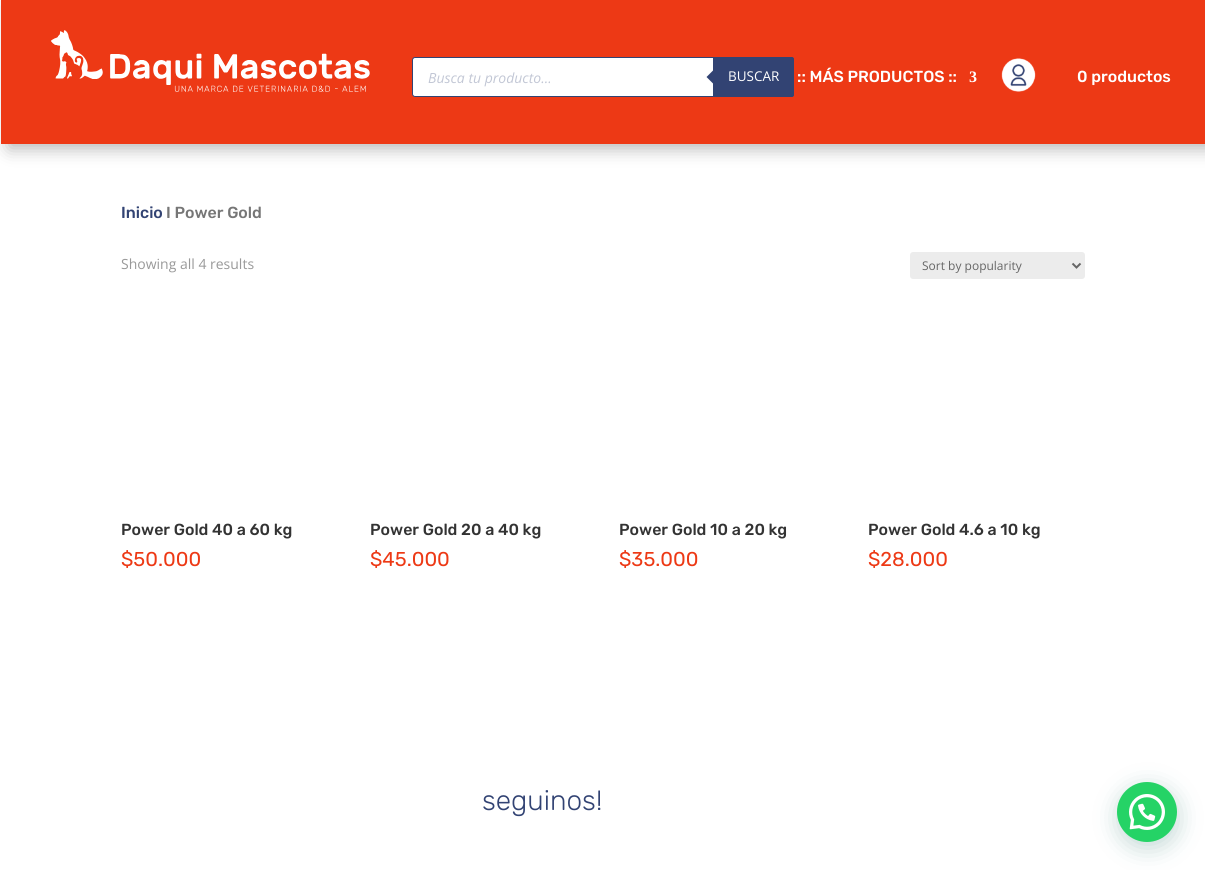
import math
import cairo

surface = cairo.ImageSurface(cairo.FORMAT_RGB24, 1205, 870)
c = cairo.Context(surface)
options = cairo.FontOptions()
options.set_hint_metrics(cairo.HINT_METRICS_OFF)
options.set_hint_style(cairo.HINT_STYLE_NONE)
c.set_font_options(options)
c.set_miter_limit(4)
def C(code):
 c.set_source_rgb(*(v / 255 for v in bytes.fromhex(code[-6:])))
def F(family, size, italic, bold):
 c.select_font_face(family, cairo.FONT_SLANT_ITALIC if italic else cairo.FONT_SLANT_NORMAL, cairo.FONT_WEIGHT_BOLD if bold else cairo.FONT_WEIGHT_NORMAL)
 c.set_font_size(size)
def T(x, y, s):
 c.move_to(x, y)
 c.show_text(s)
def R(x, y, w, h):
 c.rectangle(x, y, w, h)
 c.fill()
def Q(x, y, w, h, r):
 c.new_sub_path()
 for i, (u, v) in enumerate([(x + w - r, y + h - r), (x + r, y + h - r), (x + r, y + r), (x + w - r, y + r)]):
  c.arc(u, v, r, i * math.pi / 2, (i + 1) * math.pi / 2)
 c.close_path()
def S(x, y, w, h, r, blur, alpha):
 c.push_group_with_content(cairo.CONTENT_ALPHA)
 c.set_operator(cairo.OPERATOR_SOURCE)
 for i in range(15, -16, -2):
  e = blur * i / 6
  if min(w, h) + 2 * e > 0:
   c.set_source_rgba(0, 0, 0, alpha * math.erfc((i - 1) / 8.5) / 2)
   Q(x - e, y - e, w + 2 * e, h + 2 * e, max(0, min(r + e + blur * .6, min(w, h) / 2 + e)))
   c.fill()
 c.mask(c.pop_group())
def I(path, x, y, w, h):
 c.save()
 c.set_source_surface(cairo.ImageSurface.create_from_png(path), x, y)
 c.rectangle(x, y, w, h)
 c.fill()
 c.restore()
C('ffffff')
c.paint()
C('000000')
S(9,8,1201,140,0,9,.3)
C('ed3915')
R(1,0,1204,144)
I('1.png',51,30,319,62)
C('ffffff')
Q(412.5,57.5,381,39,2.5)
c.fill_preserve()
C('324373')
c.set_line_width(1)
c.stroke()
F('Open Sans',14,1,0)
C('c2c7d5')
T(428,83,'Busca tu producto...')
C('324373')
c.new_path()
c.move_to(713,57)
c.line_to(792,57)
c.curve_to(793,57,794,58,794,59)
c.line_to(794,95)
c.curve_to(794,96,793,97,792,97)
c.line_to(713,97)
c.close_path()
c.fill()
c.new_path()
c.move_to(714.5,69)
c.line_to(714.5,85)
c.line_to(706.5,77)
c.close_path()
c.fill()
F('Open Sans',13.5,0,0)
C('ffffff')
T(728,81,'BUSCAR')
F('Rubik Light',16,0,0)
T(797,82,':: MÁS PRODUCTOS ::')
F('Liberation Serif',16,0,1)
T(969,82,'3')
I('2.png',1001,58,35,34)
F('Rubik Light',16,0,0)
T(1077,82,'0 productos')
C('324373')
T(121,218,'Inicio')
C('767676')
T(166,218,'I Power Gold')
F('Open Sans',14,0,0)
C('999999')
T(121,269,'Showing all 4 results')
C('ececec')
Q(910,252,175,27,3)
c.fill()
c.new_path()
c.move_to(1072.5,263.5)
c.line_to(1076.5,267.5)
c.line_to(1080.5,263.5)
C('666666')
c.set_line_width(2)
c.stroke()
F('Open Sans',12,0,0)
T(922,270,'Sort by popularity')
F('Rubik Light',16,0,0)
C('333333')
T(121,535,'Power Gold 40 a 60 kg')
F('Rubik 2 Light',20,0,0)
C('ed3915')
T(121,566,'$50.000')
F('Rubik Light',16,0,0)
C('333333')
T(370,535,'Power Gold 20 a 40 kg')
F('Rubik 2 Light',20,0,0)
C('ed3915')
T(370,566,'$45.000')
F('Rubik Light',16,0,0)
C('333333')
T(619,535,'Power Gold 10 a 20 kg')
F('Rubik 2 Light',20,0,0)
C('ed3915')
T(619,566,'$35.000')
F('Rubik Light',16,0,0)
C('333333')
T(868,535,'Power Gold 4.6 a 10 kg')
F('Rubik 2 Light',20,0,0)
C('ed3915')
T(868,566,'$28.000')
F('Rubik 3 Light',28,0,0)
C('324373')
T(482,810,'seguinos!')
C('075e54')
S(1118,788,60,60,30,12,.24)
C('25d366')
c.arc(1147,812,30,0,2 * math.pi)
c.fill()
I('3.png',1129,794,36,36)
surface.write_to_png('o.png')
